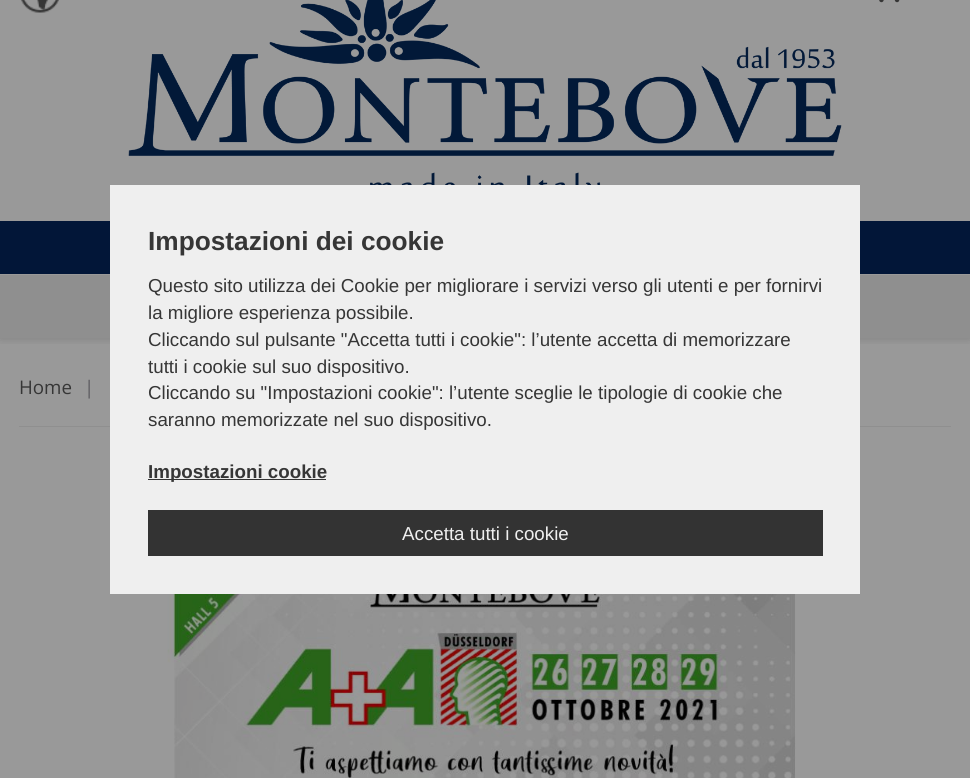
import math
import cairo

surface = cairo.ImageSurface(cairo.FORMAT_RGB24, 970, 778)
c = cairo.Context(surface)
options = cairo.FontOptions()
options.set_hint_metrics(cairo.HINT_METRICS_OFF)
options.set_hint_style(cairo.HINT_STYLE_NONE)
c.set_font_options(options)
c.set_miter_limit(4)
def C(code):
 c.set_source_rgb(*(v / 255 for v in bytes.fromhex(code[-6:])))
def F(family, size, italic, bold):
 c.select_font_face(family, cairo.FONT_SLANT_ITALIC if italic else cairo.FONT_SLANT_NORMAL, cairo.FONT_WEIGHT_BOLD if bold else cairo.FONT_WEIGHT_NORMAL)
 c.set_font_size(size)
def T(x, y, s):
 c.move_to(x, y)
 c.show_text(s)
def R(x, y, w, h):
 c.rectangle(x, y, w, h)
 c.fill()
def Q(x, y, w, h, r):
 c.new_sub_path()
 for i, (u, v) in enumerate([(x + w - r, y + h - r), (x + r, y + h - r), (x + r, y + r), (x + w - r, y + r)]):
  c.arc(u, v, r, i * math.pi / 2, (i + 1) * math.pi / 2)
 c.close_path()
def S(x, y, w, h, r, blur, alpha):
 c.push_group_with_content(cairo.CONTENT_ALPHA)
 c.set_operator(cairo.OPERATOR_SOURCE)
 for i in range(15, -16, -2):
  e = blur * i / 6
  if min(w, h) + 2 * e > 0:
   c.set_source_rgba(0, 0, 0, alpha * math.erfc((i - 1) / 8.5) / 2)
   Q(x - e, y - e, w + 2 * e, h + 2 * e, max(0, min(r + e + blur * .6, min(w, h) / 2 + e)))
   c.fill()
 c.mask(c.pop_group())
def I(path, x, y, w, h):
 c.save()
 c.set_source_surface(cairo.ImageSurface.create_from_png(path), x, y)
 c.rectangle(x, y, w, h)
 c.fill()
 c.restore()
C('999999')
c.paint()
c.save()
c.rectangle(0,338,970,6)
c.clip()
C('000000')
S(0,-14,970,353,0,4.5,.15)
c.restore()
I('1.png',21,0,38,13)
I('2.png',128,0,714,185)
I('3.png',879,0,21,3)
C('021638')
R(0,221,970,53)
C('8f8f8f')
R(0,275,970,63)
R(19,426,932,1)
F('Open Sans',18.75,0,0)
C('363636')
T(19,394,'Home')
C('5c5b5f')
T(84,394,'|')
I('4.png',167,594,635,184)
C('efefef')
R(110,185,750,409)
F('Liberation Sans',26.25,0,1)
C('363636')
T(148,250,'Impostazioni dei cookie')
F('Liberation Sans',18.75,0,0)
T(148,292,'Questo sito utilizza dei Cookie per migliorare i servizi verso gli utenti e per fornirvi')
T(148,319,'la migliore esperienza possibile.')
T(148,346,'Cliccando sul pulsante "Accetta tutti i cookie": l’utente accetta di memorizzare')
T(148,373,'tutti i cookie sul suo dispositivo.')
T(148,399,'Cliccando su "Impostazioni cookie": l’utente sceglie le tipologie di cookie che')
T(148,426,'saranno memorizzate nel suo dispositivo.')
C('333333')
R(148,479,178,1)
F('Liberation Sans',18.75,0,1)
C('363636')
T(148,478,'Impostazioni cookie')
C('333333')
R(148,510,675,46)
F('Liberation Sans',18.75,0,0)
C('efefef')
T(402,540,'Accetta tutti i cookie')
surface.write_to_png('o.png')
